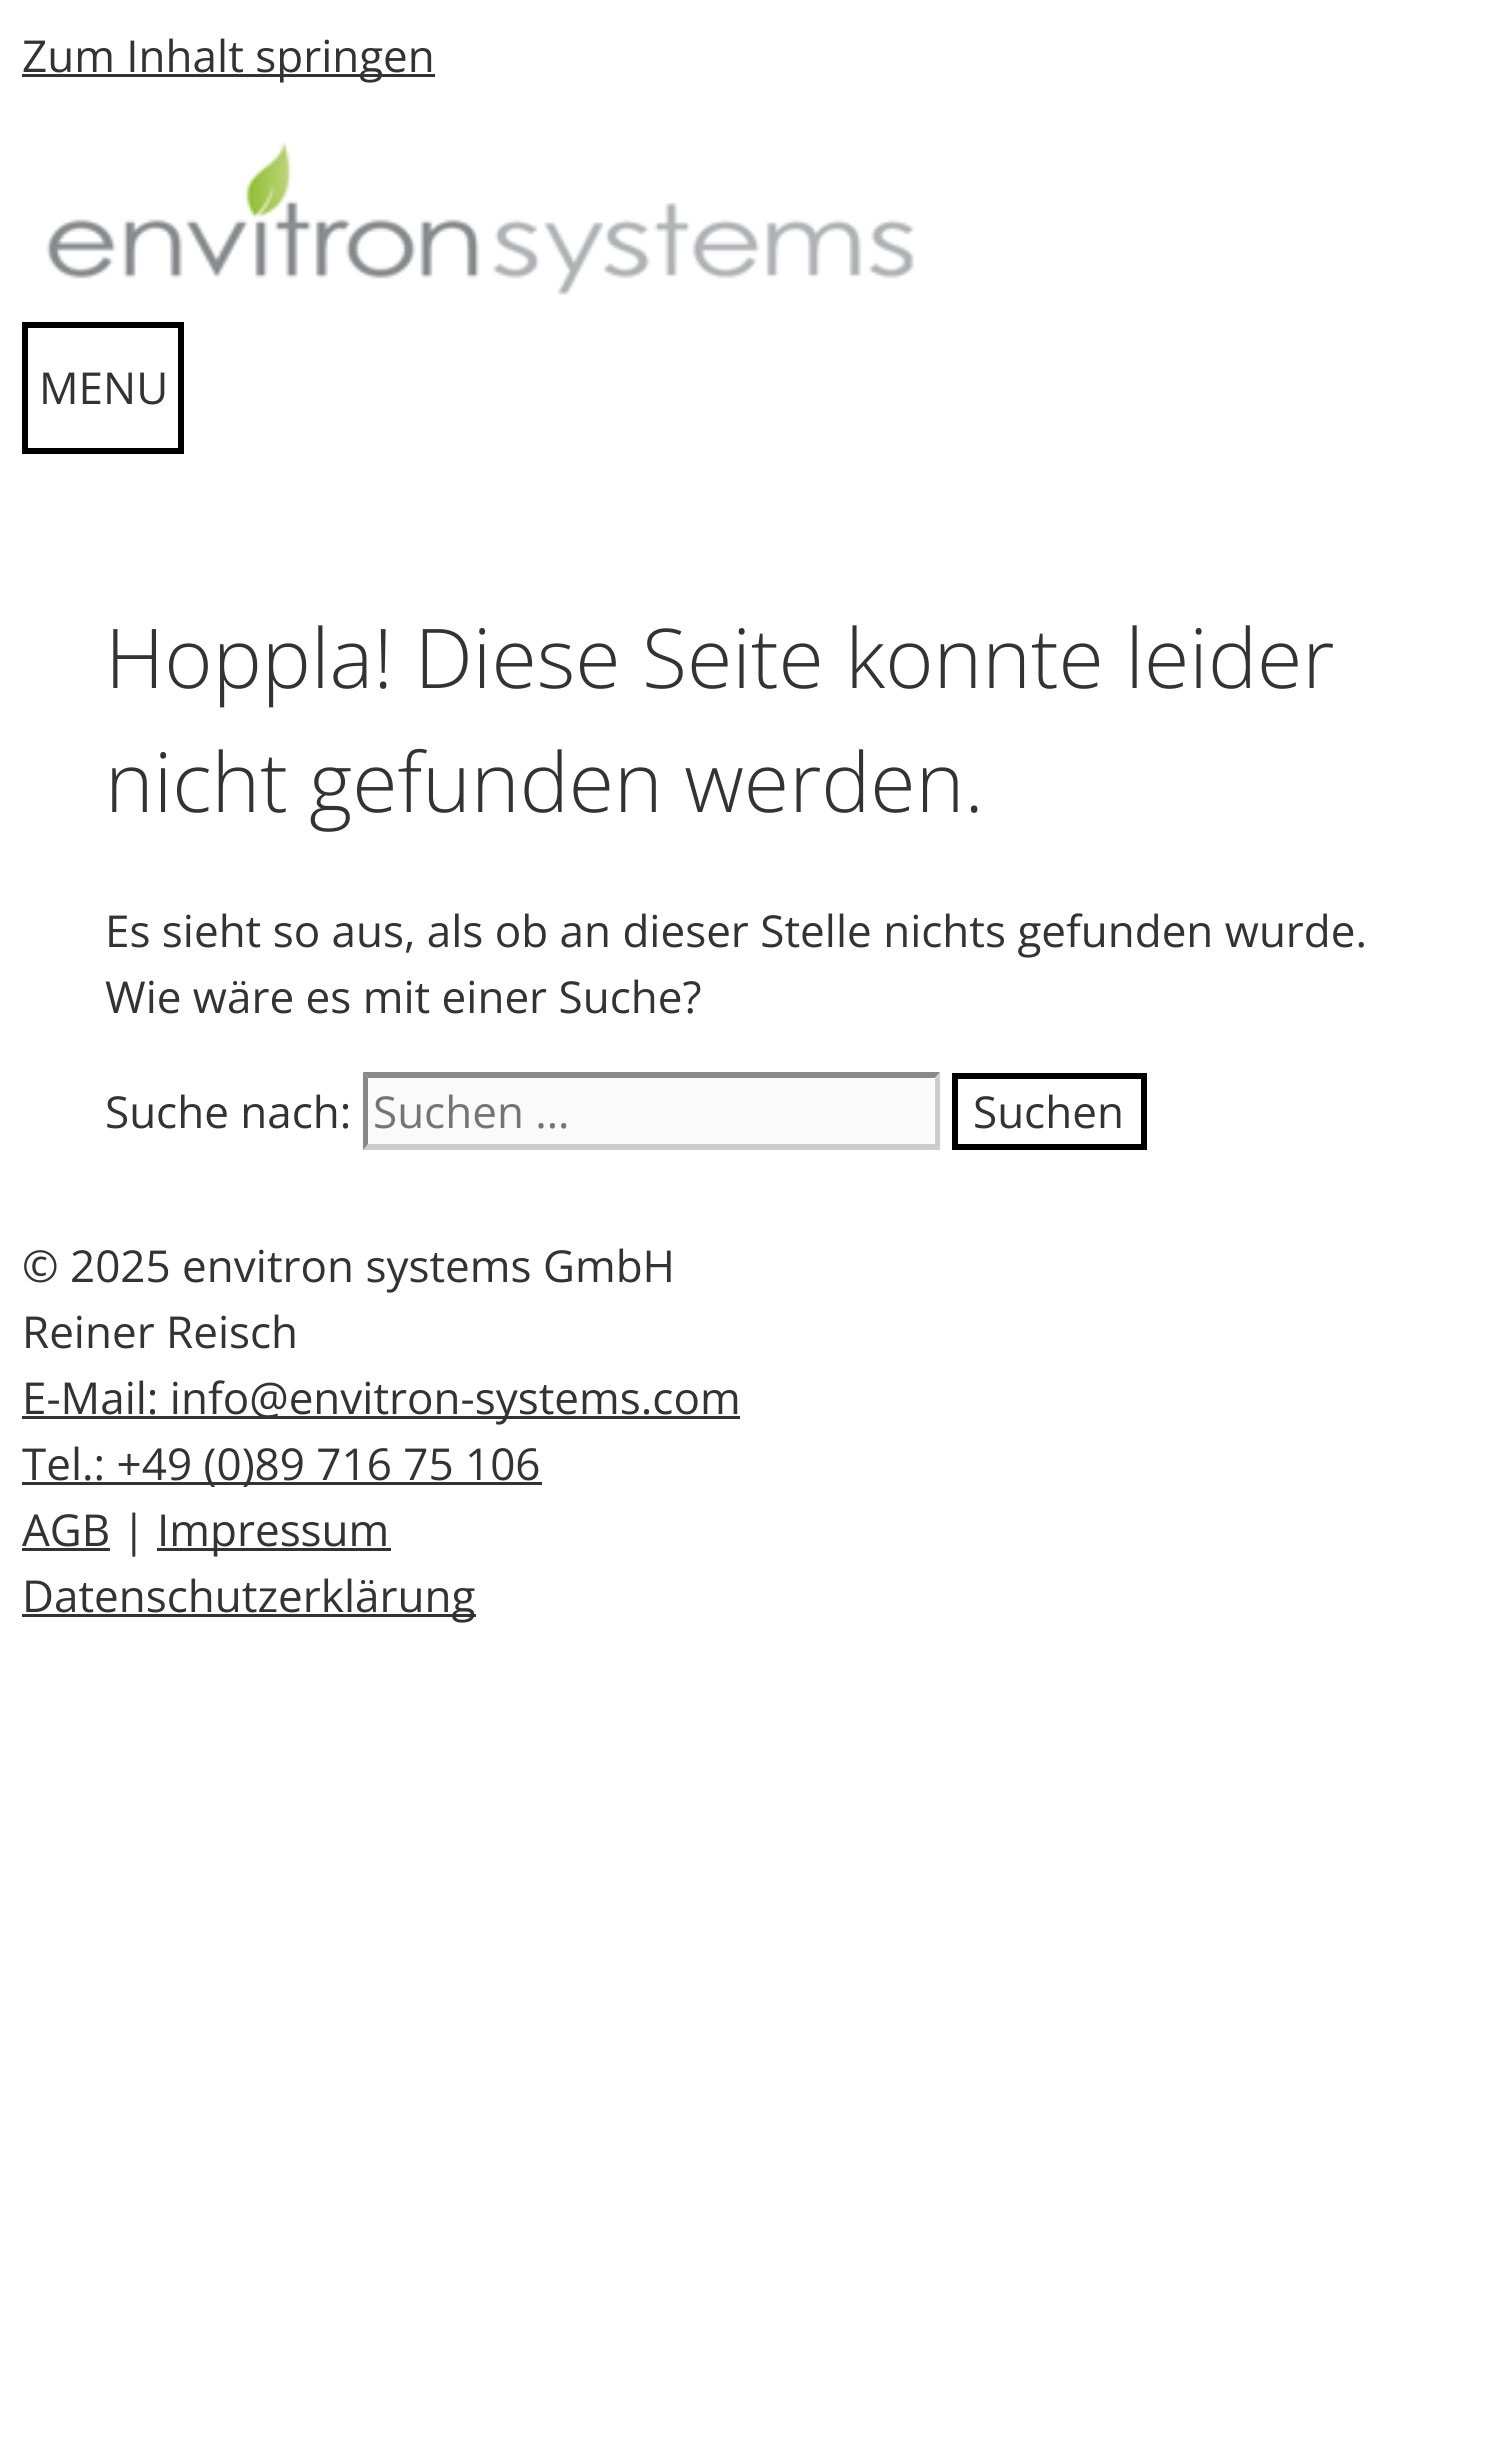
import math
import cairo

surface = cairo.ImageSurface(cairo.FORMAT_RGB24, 1494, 2450)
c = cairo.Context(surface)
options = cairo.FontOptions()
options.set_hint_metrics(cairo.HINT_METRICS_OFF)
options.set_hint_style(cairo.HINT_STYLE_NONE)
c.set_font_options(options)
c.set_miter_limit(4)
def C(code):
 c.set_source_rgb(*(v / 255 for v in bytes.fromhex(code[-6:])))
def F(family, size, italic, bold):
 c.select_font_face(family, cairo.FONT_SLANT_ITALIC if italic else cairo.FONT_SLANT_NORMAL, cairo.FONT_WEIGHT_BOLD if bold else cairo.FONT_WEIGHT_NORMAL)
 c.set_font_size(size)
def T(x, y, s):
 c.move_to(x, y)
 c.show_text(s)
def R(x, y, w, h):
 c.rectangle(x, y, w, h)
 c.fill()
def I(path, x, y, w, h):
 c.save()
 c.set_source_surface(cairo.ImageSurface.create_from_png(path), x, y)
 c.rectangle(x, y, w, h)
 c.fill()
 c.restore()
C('ffffff')
c.paint()
C('333333')
R(22,74,413,3)
F('Open Sans',44,0,0)
T(22,72,'Zum Inhalt springen')
I('1.png',46,142,868,153)
c.rectangle(25,325,156,126)
C('000000')
c.set_line_width(6)
c.stroke()
C('333333')
T(39,404,'MENU')
F('Open Sans Light',82.5,0,0)
T(105,688,'Hoppla! Diese Seite konnte leider')
T(105,812,'nicht gefunden werden.')
F('Open Sans',44,0,0)
T(105,947,'Es sieht so aus, als ob an dieser Stelle nichts gefunden wurde.')
T(105,1013,'Wie wäre es mit einer Suche?')
T(105,1128,'Suche nach:')
C('fafafa')
R(363,1073,578,77)
C('888888')
c.new_path()
c.move_to(363,1072)
c.line_to(940,1072)
c.line_to(935,1078)
c.line_to(368,1078)
c.close_path()
c.fill()
C('cccccc')
c.new_path()
c.move_to(940,1072)
c.line_to(940,1150)
c.line_to(935,1144)
c.line_to(935,1078)
c.close_path()
c.fill()
c.new_path()
c.move_to(940,1150)
c.line_to(363,1150)
c.line_to(368,1144)
c.line_to(935,1144)
c.close_path()
c.fill()
C('888888')
c.new_path()
c.move_to(363,1150)
c.line_to(363,1072)
c.line_to(368,1078)
c.line_to(368,1144)
c.close_path()
c.fill()
C('757575')
T(373,1128,'Suchen …')
c.rectangle(955,1076,189,71)
C('000000')
c.stroke()
C('333333')
T(973,1128,'Suchen')
T(22,1282,'© 2025 envitron systems GmbH')
T(22,1348,'Reiner Reisch')
R(22,1416,718,3)
T(22,1414,'E-Mail: info@envitron-systems.com')
R(22,1482,520,3)
T(22,1480,'Tel.: +49 (0)89 716 75 106')
R(22,1548,88,3)
T(22,1546,'AGB |')
R(157,1548,234,3)
T(157,1546,'Impressum')
R(22,1614,454,3)
T(22,1612,'Datenschutzerklärung')
surface.write_to_png('o.png')
